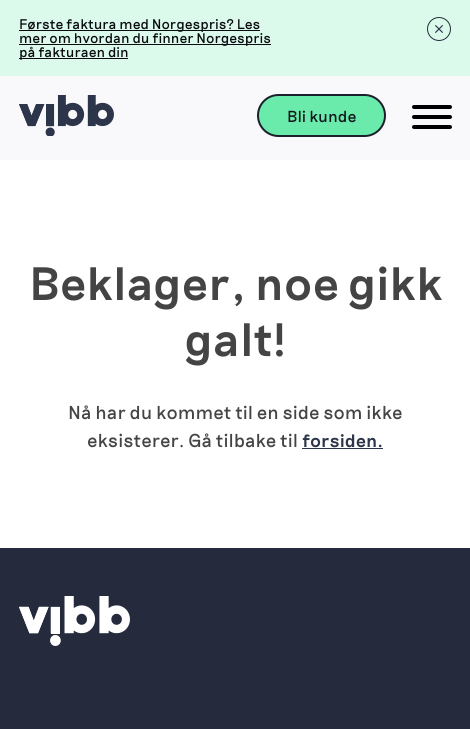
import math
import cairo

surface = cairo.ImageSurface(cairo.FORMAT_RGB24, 470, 729)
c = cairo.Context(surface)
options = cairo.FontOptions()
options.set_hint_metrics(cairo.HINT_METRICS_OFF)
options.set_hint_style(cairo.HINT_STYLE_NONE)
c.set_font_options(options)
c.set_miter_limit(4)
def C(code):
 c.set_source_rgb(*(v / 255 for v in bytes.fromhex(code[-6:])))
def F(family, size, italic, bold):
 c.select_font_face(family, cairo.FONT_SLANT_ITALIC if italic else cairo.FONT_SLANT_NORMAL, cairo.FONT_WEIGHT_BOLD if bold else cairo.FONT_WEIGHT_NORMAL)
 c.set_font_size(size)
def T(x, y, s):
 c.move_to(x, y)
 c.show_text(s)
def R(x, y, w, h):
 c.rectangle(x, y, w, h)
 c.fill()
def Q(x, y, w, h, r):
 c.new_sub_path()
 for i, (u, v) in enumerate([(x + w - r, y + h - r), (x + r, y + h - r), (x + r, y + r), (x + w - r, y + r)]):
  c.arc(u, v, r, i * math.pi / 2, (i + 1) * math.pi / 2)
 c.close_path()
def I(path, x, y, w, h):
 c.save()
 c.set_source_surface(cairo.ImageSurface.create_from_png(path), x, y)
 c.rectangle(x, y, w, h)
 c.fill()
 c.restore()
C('ffffff')
c.paint()
C('dbfaeb')
R(0,0,470,76)
C('0a0b10')
R(19,30,241,1)
F('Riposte',14,0,0)
T(19,29,'Første faktura med Norgespris? Les')
R(19,44,252,1)
T(19,43,'mer om hvordan du finner Norgespris')
R(19,58,109,1)
T(19,57,'på fakturaen din')
I('1.png',435,25,8,8)
c.arc(439,29,11.5,0,2 * math.pi)
C('252b3c')
c.set_line_width(1)
c.stroke()
C('f9f9fb')
R(0,76,470,84)
I('2.png',19,95,95,41)
C('6aebab')
Q(258,95,127,41,20.5)
c.fill_preserve()
C('1b202c')
c.set_line_width(2)
c.stroke()
F('Riposte',16,0,0)
C('11151d')
T(287,122,'Bli kunde')
C('000000')
Q(412,105,40,4,2)
c.fill()
Q(412,115,40,4,2)
c.fill()
Q(412,125,40,4,2)
c.fill()
F('Riposte Medium',46.75,0,0)
C('444444')
T(29,300,'Beklager, noe gikk')
T(185,356,'galt!')
F('Riposte',18.7,0,0)
T(68,419,'Nå har du kommet til en side som ikke')
T(87,447,'eksisterer. Gå tilbake til')
F('Riposte Medium',18,0,0)
C('2d354a')
T(302,447,'forsiden.')
R(302,448,81,1)
C('252b3c')
R(0,548,470,181)
I('3.png',19,596,111,50)
surface.write_to_png('o.png')
